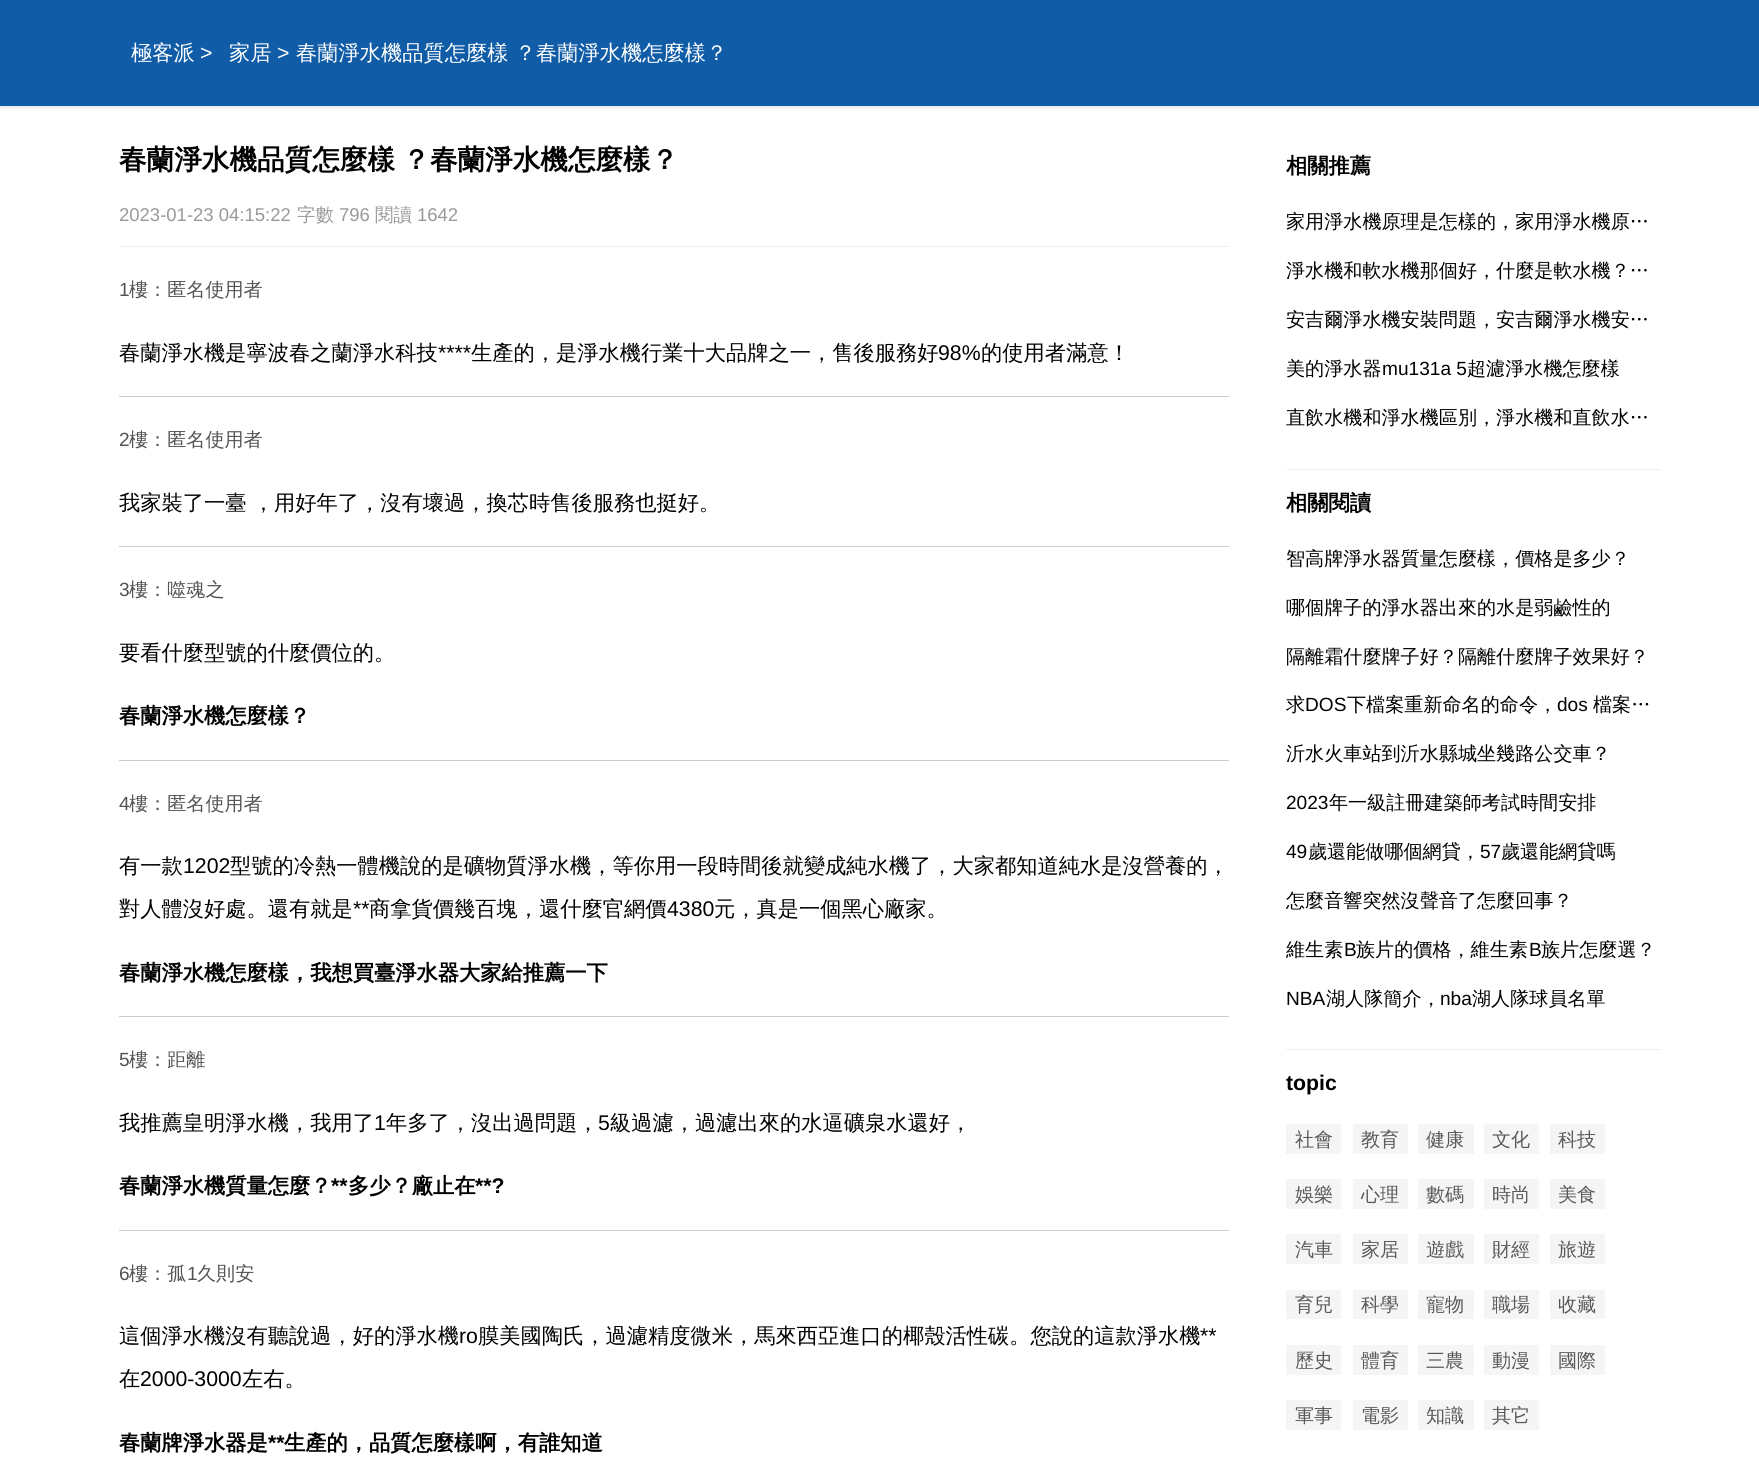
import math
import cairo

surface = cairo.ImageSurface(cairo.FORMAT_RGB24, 1759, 1468)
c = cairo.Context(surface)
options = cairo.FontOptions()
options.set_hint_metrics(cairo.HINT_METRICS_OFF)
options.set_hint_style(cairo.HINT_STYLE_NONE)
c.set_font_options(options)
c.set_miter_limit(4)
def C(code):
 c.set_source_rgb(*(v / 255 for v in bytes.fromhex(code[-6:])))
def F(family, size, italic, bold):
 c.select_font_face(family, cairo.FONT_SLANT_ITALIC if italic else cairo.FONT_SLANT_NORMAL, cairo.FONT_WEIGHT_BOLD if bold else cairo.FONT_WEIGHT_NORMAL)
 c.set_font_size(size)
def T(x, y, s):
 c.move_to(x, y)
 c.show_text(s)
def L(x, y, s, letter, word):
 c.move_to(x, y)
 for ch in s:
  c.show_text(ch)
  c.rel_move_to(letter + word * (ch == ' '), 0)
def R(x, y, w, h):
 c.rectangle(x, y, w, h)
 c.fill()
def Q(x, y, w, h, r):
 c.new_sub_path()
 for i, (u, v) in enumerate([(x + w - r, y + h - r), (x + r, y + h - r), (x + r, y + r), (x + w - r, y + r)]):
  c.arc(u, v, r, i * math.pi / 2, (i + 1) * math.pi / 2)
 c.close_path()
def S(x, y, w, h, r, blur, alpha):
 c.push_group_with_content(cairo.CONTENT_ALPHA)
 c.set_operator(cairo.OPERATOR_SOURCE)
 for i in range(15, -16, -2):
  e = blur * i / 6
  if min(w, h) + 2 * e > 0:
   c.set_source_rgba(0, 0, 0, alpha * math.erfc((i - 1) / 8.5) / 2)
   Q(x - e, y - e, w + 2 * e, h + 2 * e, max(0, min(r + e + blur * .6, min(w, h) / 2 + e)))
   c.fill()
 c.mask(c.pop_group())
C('ffffff')
c.paint()
C('000000')
S(-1,-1,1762,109,0,2,.1)
C('105ca7')
R(0,0,1759,106)
F('WenQuanYi Zen Hei Medium',21.25,0,0)
C('ffffff')
T(131,60,'極客派')
F('Liberation Sans',21.25,0,0)
T(200,60,'>')
F('WenQuanYi Zen Hei Medium',21.25,0,0)
T(229,60,'家居')
F('Liberation Sans',21.25,0,0)
T(277,60,'>')
F('WenQuanYi Zen Hei Medium',21.25,0,0)
T(296,60,'春蘭淨水機品質怎麼樣 ？春蘭淨水機怎麼樣？')
F('WenQuanYi Zen Hei',27.6,0,1)
C('000000')
L(119,169,'春蘭淨水機品質怎麼樣 ？春蘭淨水機怎麼樣？',0,-1)
F('Liberation Sans',18.5,0,0)
C('999999')
T(119,221,'2023-01-23 04:15:22')
F('WenQuanYi Zen Hei Medium',18.5,0,0)
T(297,221,'字數')
F('Liberation Sans',18.5,0,0)
T(339,221,'796')
F('WenQuanYi Zen Hei Medium',18.5,0,0)
T(375,221,'閱讀')
F('Liberation Sans',18.5,0,0)
T(417,221,'1642')
C('f0f0f0')
R(119,246,1110,1)
F('Liberation Sans',19.1,0,0)
C('535353')
T(119,296,'1')
F('WenQuanYi Zen Hei Medium',19.1,0,0)
T(129,296,'樓：匿名使用者')
F('WenQuanYi Zen Hei Medium',21.25,0,0)
C('000000')
T(119,360,'春蘭淨水機是寧波春之蘭淨水科技')
F('Liberation Sans',21.25,0,0)
T(438,360,'****')
F('WenQuanYi Zen Hei Medium',21.25,0,0)
T(471,360,'生產的，是淨水機行業十大品牌之一，售後服務好')
F('Liberation Sans',21.25,0,0)
T(938,360,'98%')
F('WenQuanYi Zen Hei Medium',21.25,0,0)
T(981,360,'的使用者滿意！')
C('cdcccc')
R(119,396,1110,1)
F('Liberation Sans',19.1,0,0)
C('535353')
T(119,446,'2')
F('WenQuanYi Zen Hei Medium',19.1,0,0)
T(129,446,'樓：匿名使用者')
F('WenQuanYi Zen Hei Medium',21.25,0,0)
C('000000')
T(119,510,'我家裝了一臺 ，用好年了，沒有壞過，換芯時售後服務也挺好。')
C('cdcccc')
R(119,546,1110,1)
F('Liberation Sans',19.1,0,0)
C('535353')
T(119,596,'3')
F('WenQuanYi Zen Hei Medium',19.1,0,0)
T(129,596,'樓：噬魂之')
F('WenQuanYi Zen Hei Medium',21.25,0,0)
C('000000')
T(119,660,'要看什麼型號的什麼價位的。')
F('WenQuanYi Zen Hei',21.25,0,1)
T(119,723,'春蘭淨水機怎麼樣？')
C('cdcccc')
R(119,760,1110,1)
F('Liberation Sans',19.1,0,0)
C('535353')
T(119,810,'4')
F('WenQuanYi Zen Hei Medium',19.1,0,0)
T(129,810,'樓：匿名使用者')
F('WenQuanYi Zen Hei Medium',21.25,0,0)
C('000000')
T(119,873,'有一款')
F('Liberation Sans',21.25,0,0)
T(183,873,'1202')
F('WenQuanYi Zen Hei Medium',21.25,0,0)
T(230,873,'型號的冷熱一體機說的是礦物質淨水機，等你用一段時間後就變成純水機了，大家都知道純水是沒營養的，')
T(119,916,'對人體沒好處。還有就是')
F('Liberation Sans',21.25,0,0)
T(353,916,'**')
F('WenQuanYi Zen Hei Medium',21.25,0,0)
T(369,916,'商拿貨價幾百塊，還什麼官網價')
F('Liberation Sans',21.25,0,0)
T(667,916,'4380')
F('WenQuanYi Zen Hei Medium',21.25,0,0)
T(714,916,'元，真是一個黑心廠家。')
F('WenQuanYi Zen Hei',21.25,0,1)
T(119,980,'春蘭淨水機怎麼樣，我想買臺淨水器大家給推薦一下')
C('cdcccc')
R(119,1016,1110,1)
F('Liberation Sans',19.1,0,0)
C('535353')
T(119,1066,'5')
F('WenQuanYi Zen Hei Medium',19.1,0,0)
T(129,1066,'樓：距離')
F('WenQuanYi Zen Hei Medium',21.25,0,0)
C('000000')
T(119,1130,'我推薦皇明淨水機，我用了')
F('Liberation Sans',21.25,0,0)
T(374,1130,'1')
F('WenQuanYi Zen Hei Medium',21.25,0,0)
T(386,1130,'年多了，沒出過問題，')
F('Liberation Sans',21.25,0,0)
T(598,1130,'5')
F('WenQuanYi Zen Hei Medium',21.25,0,0)
T(610,1130,'級過濾，過濾出來的水逼礦泉水還好，')
F('WenQuanYi Zen Hei',21.25,0,1)
T(119,1193,'春蘭淨水機質量怎麼？')
F('Liberation Sans',21.25,0,1)
T(331,1193,'**')
F('WenQuanYi Zen Hei',21.25,0,1)
T(348,1193,'多少？廠止在')
F('Liberation Sans',21.25,0,1)
T(475,1193,'**?')
C('cdcccc')
R(119,1230,1110,1)
F('Liberation Sans',19.1,0,0)
C('535353')
T(119,1280,'6')
F('WenQuanYi Zen Hei Medium',19.1,0,0)
T(129,1280,'樓：孤')
F('Liberation Sans',19.1,0,0)
T(187,1280,'1')
F('WenQuanYi Zen Hei Medium',19.1,0,0)
T(197,1280,'久則安')
F('WenQuanYi Zen Hei Medium',21.25,0,0)
C('000000')
T(119,1343,'這個淨水機沒有聽說過，好的淨水機')
F('Liberation Sans',21.25,0,0)
T(459,1343,'ro')
F('WenQuanYi Zen Hei Medium',21.25,0,0)
T(478,1343,'膜美國陶氏，過濾精度微米，馬來西亞進口的椰殼活性碳。您說的這款淨水機')
F('Liberation Sans',21.25,0,0)
T(1200,1343,'**')
F('WenQuanYi Zen Hei Medium',21.25,0,0)
T(119,1386,'在')
F('Liberation Sans',21.25,0,0)
T(140,1386,'2000-3000')
F('WenQuanYi Zen Hei Medium',21.25,0,0)
T(242,1386,'左右。')
F('WenQuanYi Zen Hei',21.25,0,1)
T(119,1450,'春蘭牌淨水器是')
F('Liberation Sans',21.25,0,1)
T(268,1450,'**')
F('WenQuanYi Zen Hei',21.25,0,1)
T(284,1450,'生產的，品質怎麼樣啊，有誰知道')
T(1286,173,'相關推薦')
F('WenQuanYi Zen Hei Medium',19.1,0,0)
T(1286,228,'家用淨水機原理是怎樣的，家用淨水機原…')
T(1286,277,'淨水機和軟水機那個好，什麼是軟水機？…')
T(1286,326,'安吉爾淨水機安裝問題，安吉爾淨水機安…')
T(1286,375,'美的淨水器')
F('Liberation Sans',19.1,0,0)
T(1382,375,'mu131a 5')
F('WenQuanYi Zen Hei Medium',19.1,0,0)
T(1467,375,'超濾淨水機怎麼樣')
T(1286,424,'直飲水機和淨水機區別，淨水機和直飲水…')
C('f0f0f0')
R(1286,469,375,1)
F('WenQuanYi Zen Hei',21.25,0,1)
C('000000')
T(1286,510,'相關閱讀')
F('WenQuanYi Zen Hei Medium',19.1,0,0)
T(1286,565,'智高牌淨水器質量怎麼樣，價格是多少？')
T(1286,614,'哪個牌子的淨水器出來的水是弱鹼性的')
T(1286,663,'隔離霜什麼牌子好？隔離什麼牌子效果好？')
T(1286,711,'求')
F('Liberation Sans',19.1,0,0)
T(1305,711,'DOS')
F('WenQuanYi Zen Hei Medium',19.1,0,0)
T(1347,711,'下檔案重新命名的命令，')
F('Liberation Sans',19.1,0,0)
T(1557,711,'dos')
F('WenQuanYi Zen Hei Medium',19.1,0,0)
T(1593,711,'檔案…')
T(1286,760,'沂水火車站到沂水縣城坐幾路公交車？')
F('Liberation Sans',19.1,0,0)
T(1286,809,'2023')
F('WenQuanYi Zen Hei Medium',19.1,0,0)
T(1329,809,'年一級註冊建築師考試時間安排')
F('Liberation Sans',19.1,0,0)
T(1286,858,'49')
F('WenQuanYi Zen Hei Medium',19.1,0,0)
T(1308,858,'歲還能做哪個網貸，')
F('Liberation Sans',19.1,0,0)
T(1480,858,'57')
F('WenQuanYi Zen Hei Medium',19.1,0,0)
T(1501,858,'歲還能網貸嗎')
T(1286,907,'怎麼音響突然沒聲音了怎麼回事？')
T(1286,956,'維生素')
F('Liberation Sans',19.1,0,0)
T(1344,956,'B')
F('WenQuanYi Zen Hei Medium',19.1,0,0)
T(1356,956,'族片的價格，維生素')
F('Liberation Sans',19.1,0,0)
T(1529,956,'B')
F('WenQuanYi Zen Hei Medium',19.1,0,0)
T(1541,956,'族片怎麼選？')
F('Liberation Sans',19.1,0,0)
T(1286,1005,'NBA')
F('WenQuanYi Zen Hei Medium',19.1,0,0)
T(1326,1005,'湖人隊簡介，')
F('Liberation Sans',19.1,0,0)
T(1440,1005,'nba')
F('WenQuanYi Zen Hei Medium',19.1,0,0)
T(1472,1005,'湖人隊球員名單')
C('f0f0f0')
R(1286,1049,375,1)
F('Liberation Sans',21.25,0,1)
C('000000')
T(1286,1090,'topic')
C('f5f5f5')
R(1286,1124,55,30)
F('WenQuanYi Zen Hei Medium',19.1,0,0)
C('595959')
T(1295,1146,'社會')
C('f5f5f5')
R(1353,1124,55,30)
C('595959')
T(1361,1146,'教育')
C('f5f5f5')
R(1418,1124,56,30)
C('595959')
T(1426,1146,'健康')
C('f5f5f5')
R(1484,1124,55,30)
C('595959')
T(1492,1146,'文化')
C('f5f5f5')
R(1550,1124,55,30)
C('595959')
T(1558,1146,'科技')
C('f5f5f5')
R(1286,1179,55,30)
C('595959')
T(1295,1201,'娛樂')
C('f5f5f5')
R(1353,1179,55,30)
C('595959')
T(1361,1201,'心理')
C('f5f5f5')
R(1418,1179,56,30)
C('595959')
T(1426,1201,'數碼')
C('f5f5f5')
R(1484,1179,55,30)
C('595959')
T(1492,1201,'時尚')
C('f5f5f5')
R(1550,1179,55,30)
C('595959')
T(1558,1201,'美食')
C('f5f5f5')
R(1286,1234,55,30)
C('595959')
T(1295,1256,'汽車')
C('f5f5f5')
R(1353,1234,55,30)
C('595959')
T(1361,1256,'家居')
C('f5f5f5')
R(1418,1234,56,30)
C('595959')
T(1426,1256,'遊戲')
C('f5f5f5')
R(1484,1234,55,30)
C('595959')
T(1492,1256,'財經')
C('f5f5f5')
R(1550,1234,55,30)
C('595959')
T(1558,1256,'旅遊')
C('f5f5f5')
R(1286,1290,55,29)
C('595959')
T(1295,1311,'育兒')
C('f5f5f5')
R(1353,1290,55,29)
C('595959')
T(1361,1311,'科學')
C('f5f5f5')
R(1418,1290,56,29)
C('595959')
T(1426,1311,'寵物')
C('f5f5f5')
R(1484,1290,55,29)
C('595959')
T(1492,1311,'職場')
C('f5f5f5')
R(1550,1290,55,29)
C('595959')
T(1558,1311,'收藏')
C('f5f5f5')
R(1286,1345,55,30)
C('595959')
T(1295,1367,'歷史')
C('f5f5f5')
R(1353,1345,55,30)
C('595959')
T(1361,1367,'體育')
C('f5f5f5')
R(1418,1345,56,30)
C('595959')
T(1426,1367,'三農')
C('f5f5f5')
R(1484,1345,55,30)
C('595959')
T(1492,1367,'動漫')
C('f5f5f5')
R(1550,1345,55,30)
C('595959')
T(1558,1367,'國際')
C('f5f5f5')
R(1286,1400,55,30)
C('595959')
T(1295,1422,'軍事')
C('f5f5f5')
R(1353,1400,55,30)
C('595959')
T(1361,1422,'電影')
C('f5f5f5')
R(1418,1400,56,30)
C('595959')
T(1426,1422,'知識')
C('f5f5f5')
R(1484,1400,55,30)
C('595959')
T(1492,1422,'其它')
surface.write_to_png('o.png')
